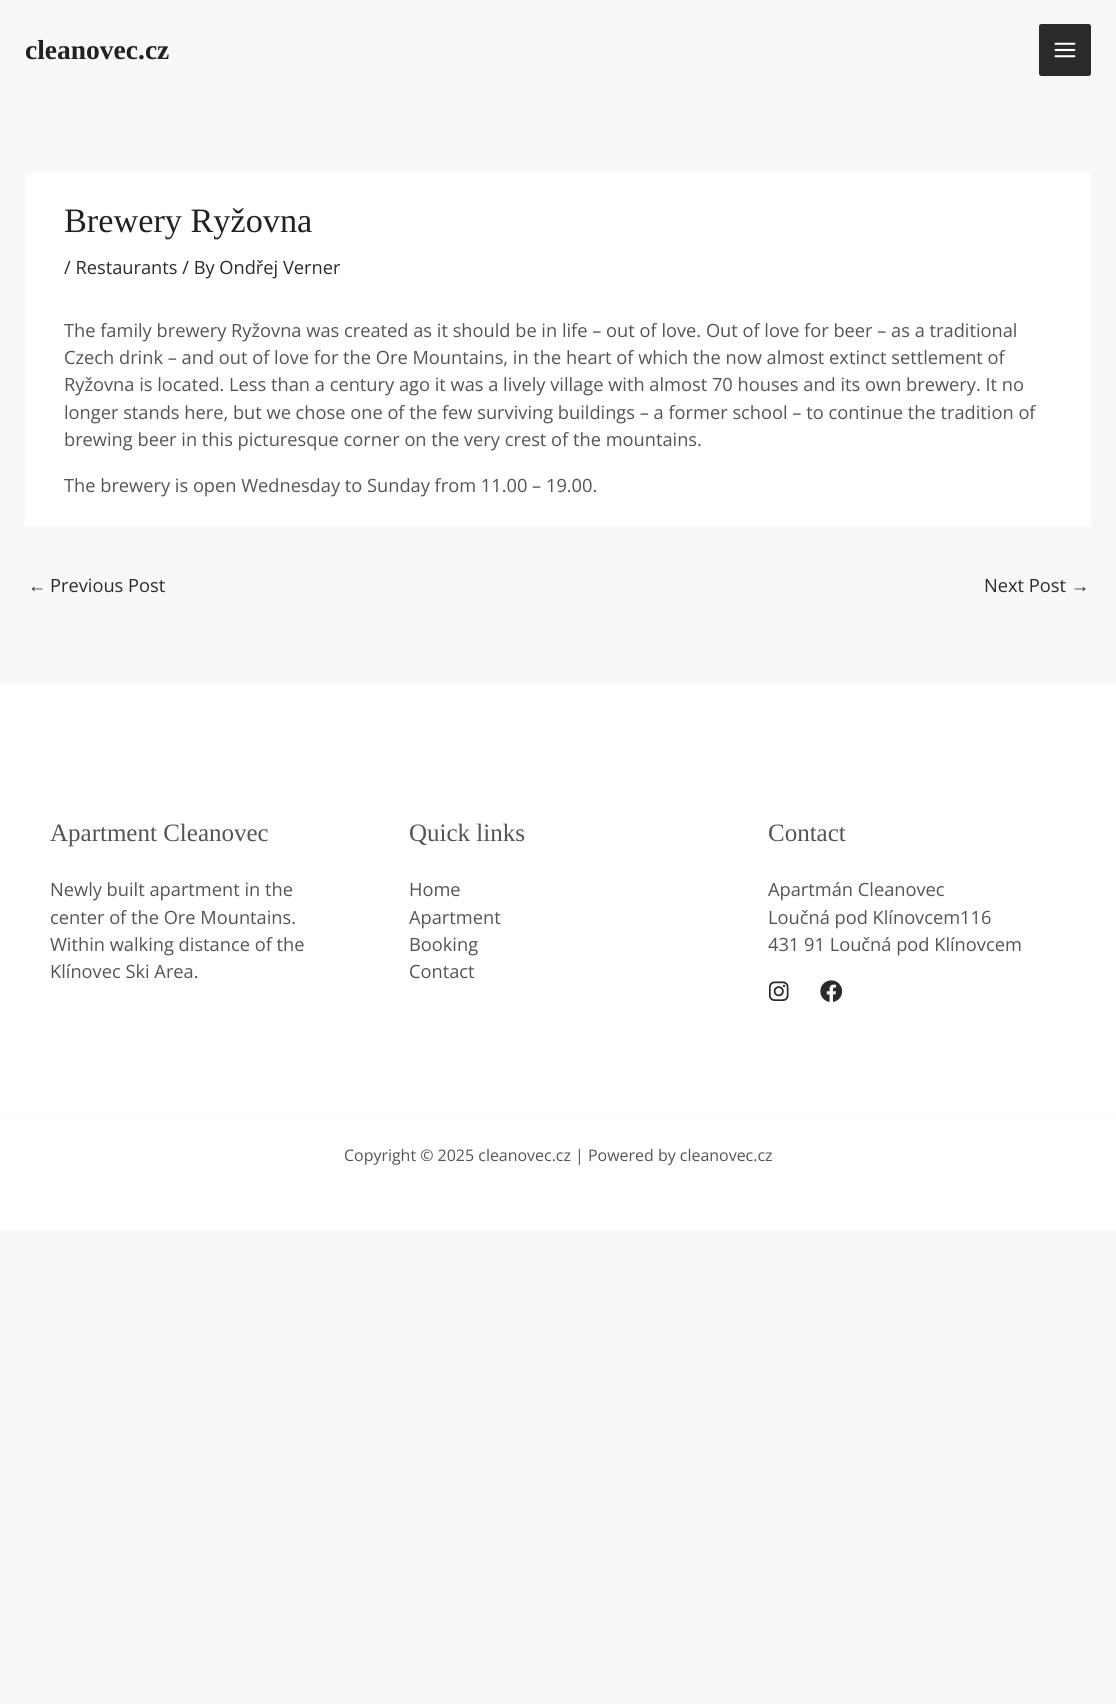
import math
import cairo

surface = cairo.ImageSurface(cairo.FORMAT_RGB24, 1116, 1704)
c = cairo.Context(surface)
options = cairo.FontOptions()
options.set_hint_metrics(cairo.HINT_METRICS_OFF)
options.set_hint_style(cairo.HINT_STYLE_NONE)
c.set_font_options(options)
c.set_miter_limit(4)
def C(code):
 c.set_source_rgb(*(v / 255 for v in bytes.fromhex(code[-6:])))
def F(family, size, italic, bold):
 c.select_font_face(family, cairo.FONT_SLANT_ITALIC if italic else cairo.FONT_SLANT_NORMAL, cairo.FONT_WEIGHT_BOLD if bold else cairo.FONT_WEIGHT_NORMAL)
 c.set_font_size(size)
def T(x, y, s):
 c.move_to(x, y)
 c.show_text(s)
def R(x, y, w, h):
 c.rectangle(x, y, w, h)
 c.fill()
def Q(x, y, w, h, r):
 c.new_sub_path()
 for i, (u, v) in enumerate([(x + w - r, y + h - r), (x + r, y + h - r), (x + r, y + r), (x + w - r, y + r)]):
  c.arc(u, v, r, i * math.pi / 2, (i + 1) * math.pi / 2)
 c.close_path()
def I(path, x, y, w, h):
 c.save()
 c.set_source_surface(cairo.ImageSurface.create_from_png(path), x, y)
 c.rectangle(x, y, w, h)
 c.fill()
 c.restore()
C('f7f8f9')
c.paint()
F('Liberation Serif',27.5,0,1)
C('212121')
T(25,59,'cleanovec.cz')
C('2a2a2a')
Q(1039,24,52,52,2.5)
c.fill()
I('1.png',1054,42,22,16)
C('ffffff')
R(25,173,1066,353)
F('Liberation Serif',34.25,0,0)
C('212121')
T(64,232,'Brewery Ryžovna')
F('Open Sans',18.25,0,0)
C('2a2a2a')
T(64,274,'/ Restaurants / By Ondřej Verner')
C('545454')
T(64,337,'The family brewery Ryžovna was created as it should be in life – out of love. Out of love for beer – as a traditional')
T(64,364,'Czech drink – and out of love for the Ore Mountains, in the heart of which the now almost extinct settlement of')
T(64,391,'Ryžovna is located. Less than a century ago it was a lively village with almost 70 houses and its own brewery. It no')
T(64,419,'longer stands here, but we chose one of the few surviving buildings – a former school – to continue the tradition of')
T(64,446,'brewing beer in this picturesque corner on the very crest of the mountains.')
T(64,492,'The brewery is open Wednesday to Sunday from 11.00 – 19.00.')
F('Liberation Sans',18.25,0,0)
C('2a2a2a')
T(28,592,'←')
F('Open Sans',18.25,0,0)
T(50,592,'Previous Post')
T(984,592,'Next Post')
F('Liberation Sans',18.25,0,0)
T(1071,592,'→')
C('ffffff')
R(0,684,1116,546)
F('Liberation Serif',25,0,0)
C('545454')
T(50,841,'Apartment Cleanovec')
F('Open Sans',18.25,0,0)
T(50,896,'Newly built apartment in the')
T(50,924,'center of the Ore Mountains.')
T(50,951,'Within walking distance of the')
T(50,978,'Klínovec Ski Area.')
F('Liberation Serif',25,0,0)
T(409,841,'Quick links')
F('Open Sans',18.25,0,0)
T(409,896,'Home')
T(409,924,'Apartment')
T(409,951,'Booking')
T(409,978,'Contact')
F('Liberation Serif',25,0,0)
T(768,841,'Contact')
F('Open Sans',18.25,0,0)
T(768,896,'Apartmán Cleanovec')
T(768,924,'Loučná pod Klínovcem116')
T(768,951,'431 91 Loučná pod Klínovcem')
I('2.png',768,981,21,20)
I('3.png',820,980,23,22)
C('f7f8f9')
R(0,1116,1116,1)
F('Open Sans',15.95,0,0)
C('545454')
T(344,1161,'Copyright © 2025 cleanovec.cz | Powered by cleanovec.cz')
surface.write_to_png('o.png')
